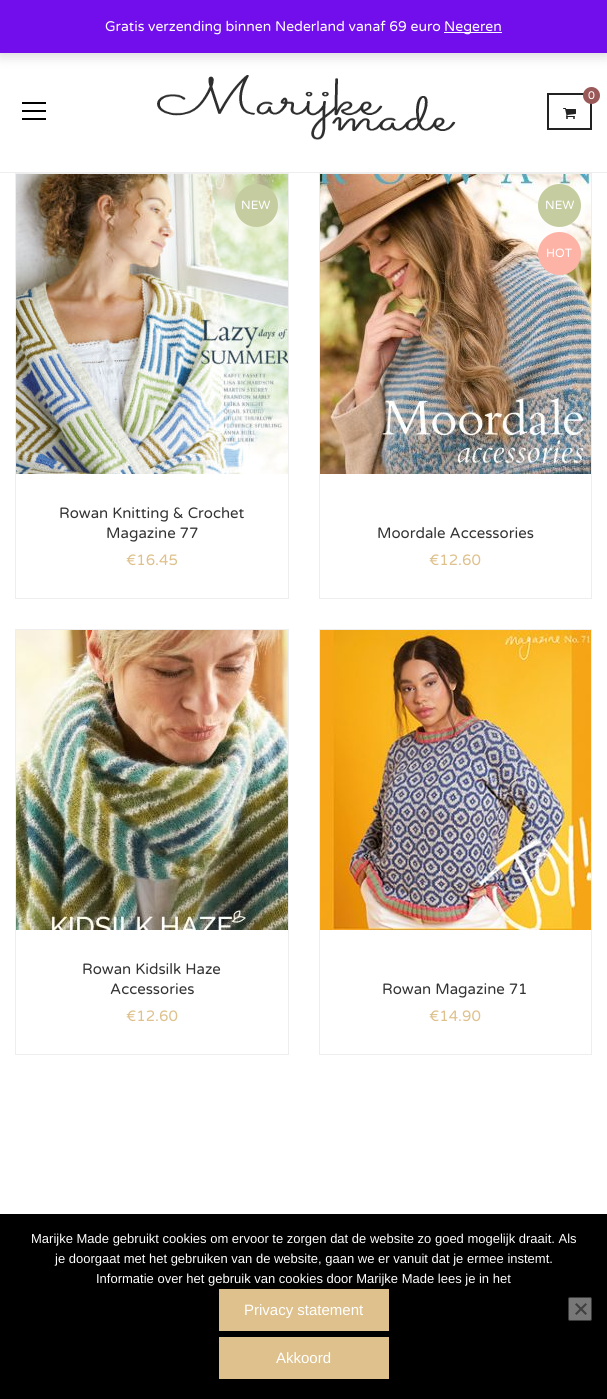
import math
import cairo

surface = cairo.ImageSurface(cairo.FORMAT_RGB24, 607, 1399)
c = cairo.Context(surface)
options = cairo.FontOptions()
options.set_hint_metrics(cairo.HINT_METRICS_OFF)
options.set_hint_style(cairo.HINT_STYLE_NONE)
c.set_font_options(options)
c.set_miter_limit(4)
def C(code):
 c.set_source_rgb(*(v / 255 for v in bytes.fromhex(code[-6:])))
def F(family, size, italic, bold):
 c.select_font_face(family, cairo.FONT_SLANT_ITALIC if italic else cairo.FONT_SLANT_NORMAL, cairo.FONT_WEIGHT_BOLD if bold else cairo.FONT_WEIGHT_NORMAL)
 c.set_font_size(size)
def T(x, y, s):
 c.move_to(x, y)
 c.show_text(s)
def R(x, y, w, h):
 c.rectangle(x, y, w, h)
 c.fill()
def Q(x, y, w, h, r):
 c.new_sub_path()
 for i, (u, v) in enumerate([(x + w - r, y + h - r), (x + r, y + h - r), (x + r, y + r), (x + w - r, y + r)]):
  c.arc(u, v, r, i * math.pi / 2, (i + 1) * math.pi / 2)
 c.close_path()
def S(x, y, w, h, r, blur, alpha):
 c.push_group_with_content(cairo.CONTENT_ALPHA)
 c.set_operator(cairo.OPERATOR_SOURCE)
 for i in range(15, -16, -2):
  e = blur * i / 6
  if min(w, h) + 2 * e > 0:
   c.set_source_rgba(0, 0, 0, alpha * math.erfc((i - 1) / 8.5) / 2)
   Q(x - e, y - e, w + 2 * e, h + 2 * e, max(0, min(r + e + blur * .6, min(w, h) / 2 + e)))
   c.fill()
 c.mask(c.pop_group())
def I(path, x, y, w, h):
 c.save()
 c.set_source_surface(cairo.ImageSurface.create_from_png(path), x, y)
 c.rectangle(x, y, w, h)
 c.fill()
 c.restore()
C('ffffff')
c.paint()
I('1.png',157,75,299,65)
C('000000')
S(0,1,607,53,0,7,.2)
C('720eec')
R(0,0,607,53)
F('Varela Round',14,0,0)
C('ffffff')
T(105,31,'Gratis verzending binnen Nederland vanaf 69 euro')
C('fcfbfe')
R(444,32,58,1)
C('ffffff')
T(444,31,'Negeren')
C('eeeeee')
R(0,172,607,1)
c.rectangle(548,94,43,35)
C('222222')
c.stroke()
C('995958')
c.arc(591.5,95.5,8.5,0,2 * math.pi)
c.fill()
F('Varela Round',11,0,0)
C('ffffff')
T(588,99,'0')
I('2.png',563,108,13,11)
C('000000')
R(22,102,24,2)
R(22,110,24,2)
R(22,118,24,2)
c.rectangle(15.5,173.5,273,425)
C('eeeeee')
c.set_line_width(1)
c.stroke()
I('3.png',16,174,272,300)
C('c5cda0')
c.arc(256.5,205.5,21.5,0,2 * math.pi)
c.fill()
F('Varela Round',12,0,0)
C('ffffff')
T(241,209,'NEW')
F('Varela Round',15,0,0)
C('333333')
T(59,518,'Rowan Knitting & Crochet')
T(106,538,'Magazine 77')
C('dec18c')
T(126,565,'€16.45')
c.rectangle(319.5,173.5,272,425)
C('eeeeee')
c.stroke()
I('4.png',320,174,271,300)
C('c5cda0')
c.arc(559.5,205.5,21.5,0,2 * math.pi)
c.fill()
F('Varela Round',12,0,0)
C('ffffff')
T(545,209,'NEW')
C('fdb3a6')
c.new_path()
c.arc(559.5,253.5,21.5,0,2 * math.pi)
c.fill()
C('ffffff')
T(546,257,'HOT')
F('Varela Round',15,0,0)
C('333333')
T(377,538,'Moordale Accessories')
C('dec18c')
T(429,565,'€12.60')
c.rectangle(15.5,629.5,273,425)
C('eeeeee')
c.stroke()
I('5.png',16,630,272,300)
C('333333')
T(82,974,'Rowan Kidsilk Haze')
T(110,994,'Accessories')
C('dec18c')
T(126,1021,'€12.60')
c.rectangle(319.5,629.5,272,425)
C('eeeeee')
c.stroke()
I('6.png',320,630,271,300)
C('333333')
T(382,994,'Rowan Magazine 71')
C('dec18c')
T(429,1021,'€14.90')
C('000000')
R(0,1214,607,185)
F('Liberation Sans',13,0,0)
C('ffffff')
T(31,1243,'Marijke Made gebruikt cookies om ervoor te zorgen dat de website zo goed mogelijk draait. Als')
T(55,1263,'je doorgaat met het gebruiken van de website, gaan we er vanuit dat je ermee instemt.')
T(96,1283,'Informatie over het gebruik van cookies door Marijke Made lees je in het')
C('dec18c')
R(219,1289,170,42)
F('Liberation Sans',15,0,0)
C('ffffff')
T(244,1315,'Privacy statement')
C('787878')
Q(568.5,1297.5,23,23,1.5)
c.fill_preserve()
C('3b3b3b')
c.stroke()
C('404040')
c.new_path()
c.move_to(585.5,1303)
c.line_to(587,1304.5)
c.line_to(576.5,1315)
c.line_to(575,1313.5)
c.close_path()
c.fill()
c.new_path()
c.move_to(575,1304.5)
c.line_to(576.5,1303)
c.line_to(587,1313.5)
c.line_to(585.5,1315)
c.close_path()
c.fill()
C('dec18c')
R(219,1337,170,42)
C('ffffff')
T(276,1363,'Akkoord')
surface.write_to_png('o.png')
